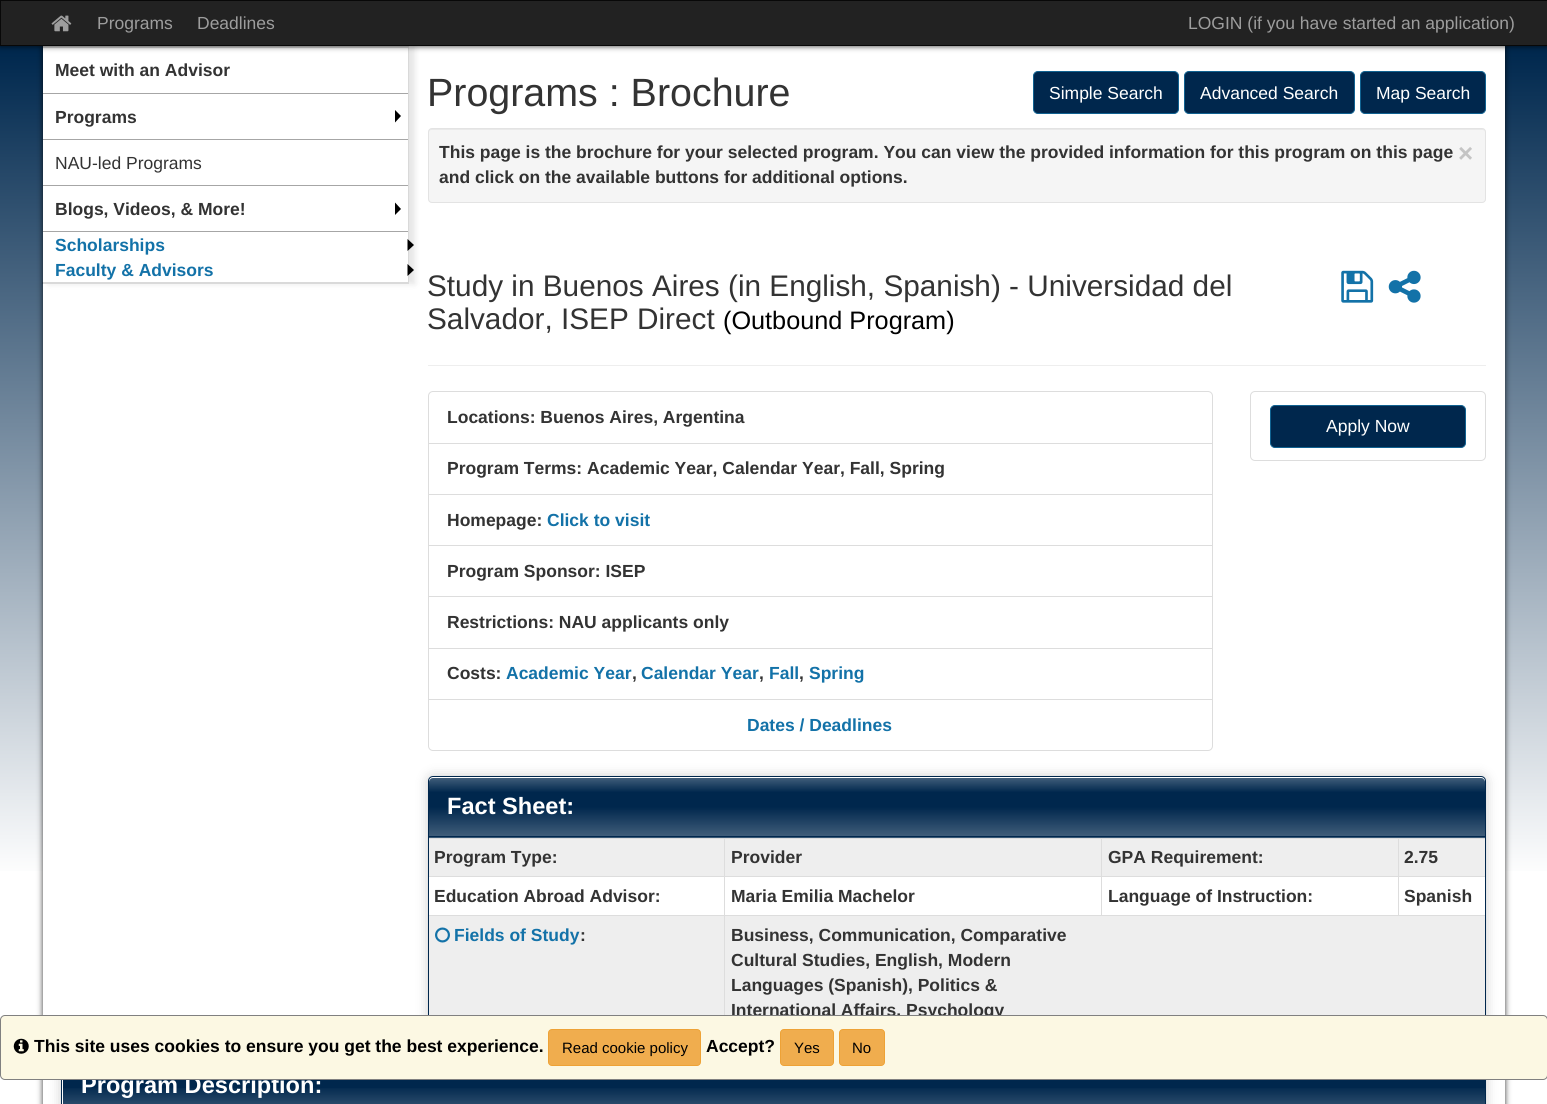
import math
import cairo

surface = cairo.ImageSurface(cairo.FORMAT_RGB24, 1547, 1104)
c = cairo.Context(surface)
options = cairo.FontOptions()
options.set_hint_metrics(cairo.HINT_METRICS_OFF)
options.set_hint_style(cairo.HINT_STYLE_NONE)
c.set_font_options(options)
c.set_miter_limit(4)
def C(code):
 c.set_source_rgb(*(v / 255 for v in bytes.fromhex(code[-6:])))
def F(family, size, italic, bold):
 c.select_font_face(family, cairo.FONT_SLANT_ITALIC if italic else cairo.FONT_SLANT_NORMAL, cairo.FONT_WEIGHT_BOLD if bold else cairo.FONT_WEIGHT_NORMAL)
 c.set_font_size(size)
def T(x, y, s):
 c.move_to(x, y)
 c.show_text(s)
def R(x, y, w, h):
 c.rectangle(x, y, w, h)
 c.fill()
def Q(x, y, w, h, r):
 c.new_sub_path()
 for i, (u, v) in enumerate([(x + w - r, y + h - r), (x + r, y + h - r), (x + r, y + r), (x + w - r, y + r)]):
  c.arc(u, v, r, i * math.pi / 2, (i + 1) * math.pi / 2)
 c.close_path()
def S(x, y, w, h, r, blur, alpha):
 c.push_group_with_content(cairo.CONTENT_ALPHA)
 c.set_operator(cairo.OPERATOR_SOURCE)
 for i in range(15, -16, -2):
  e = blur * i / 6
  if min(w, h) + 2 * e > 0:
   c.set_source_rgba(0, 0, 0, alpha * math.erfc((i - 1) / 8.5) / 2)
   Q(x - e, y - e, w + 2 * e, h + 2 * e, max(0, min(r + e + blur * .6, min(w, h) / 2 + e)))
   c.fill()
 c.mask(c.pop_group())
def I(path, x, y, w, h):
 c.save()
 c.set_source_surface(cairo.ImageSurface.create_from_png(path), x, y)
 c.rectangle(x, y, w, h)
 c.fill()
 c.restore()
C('ffffff')
c.paint()
gradient = cairo.LinearGradient(774,0,774,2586)
gradient.add_color_stop_rgba(.02,0,0.157,0.306,1)
gradient.add_color_stop_rgba(.34,1,1,1,1)
c.set_source(gradient)
R(0,46,1547,825)
C('000000')
S(43,46,1462,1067,0,3,.8)
C('ffffff')
R(43,46,1462,1058)
c.save()
c.set_fill_rule(cairo.FILL_RULE_EVEN_ODD)
c.new_path()
c.move_to(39,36)
c.line_to(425,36)
c.line_to(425,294)
c.line_to(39,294)
c.close_path()
c.move_to(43,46)
c.line_to(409,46)
c.line_to(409,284)
c.line_to(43,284)
c.close_path()
c.clip()
C('000000')
S(49,46,366,238,0,3,.1)
c.restore()
c.set_source_rgba(0,0,0,0.15)
c.new_path()
c.move_to(42,46)
c.line_to(409,46)
c.line_to(408,48)
c.line_to(42,48)
c.close_path()
c.fill()
c.new_path()
c.move_to(409,46)
c.line_to(409,284)
c.line_to(408,282)
c.line_to(408,48)
c.close_path()
c.fill()
C('000000')
S(0,0,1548,46,0,3,.8)
C('222222')
c.rectangle(.5,.5,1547,45)
c.fill_preserve()
C('080808')
c.set_line_width(1)
c.stroke()
I('1.png',51,15,21,17)
F('Liberation Sans',17.5,0,0)
C('9d9d9d')
T(97,29,'Programs')
T(197,29,'Deadlines')
T(1188,29,'LOGIN (if you have started an application)')
c.set_source_rgba(0,0,0,0.15)
c.new_path()
c.move_to(409,284)
c.line_to(42,284)
c.line_to(42,282)
c.line_to(408,282)
c.close_path()
c.fill()
C('a6a6a6')
R(43,93,365,1)
F('Liberation Sans',17.5,0,1)
C('333333')
T(55,76,'Meet with an Advisor')
C('a6a6a6')
R(43,139,365,1)
C('333333')
T(55,123,'Programs')
C('000000')
c.new_path()
c.move_to(395,122.5)
c.line_to(395,110)
c.line_to(401,116)
c.close_path()
c.fill()
C('a6a6a6')
R(43,185,365,1)
F('Liberation Sans',17.5,0,0)
C('333333')
T(55,169,'NAU-led Programs')
C('a6a6a6')
R(43,231,365,1)
F('Liberation Sans',17.5,0,1)
C('333333')
T(55,215,'Blogs, Videos, & More!')
C('000000')
c.new_path()
c.move_to(395,215)
c.line_to(395,202.5)
c.line_to(401,209)
c.close_path()
c.fill()
C('1372a8')
T(55,251,'Scholarships')
C('000000')
c.new_path()
c.move_to(407.5,251)
c.line_to(407.5,239)
c.line_to(414,245)
c.close_path()
c.fill()
C('1372a8')
T(55,276,'Faculty & Advisors')
C('000000')
c.new_path()
c.move_to(407.5,276)
c.line_to(407.5,264)
c.line_to(414,270)
c.close_path()
c.fill()
F('Liberation Sans',39.4,0,0)
C('333333')
T(427,106,'Programs : Brochure')
C('00274d')
Q(1033.5,71.5,145,42,4.5)
c.fill_preserve()
C('106291')
c.stroke()
F('Liberation Sans',17.5,0,0)
C('ffffff')
T(1049,99,'Simple Search')
C('00274d')
Q(1184.5,71.5,170,42,4.5)
c.fill_preserve()
C('106291')
c.stroke()
C('ffffff')
T(1200,99,'Advanced Search')
C('00274d')
Q(1360.5,71.5,125,42,4.5)
c.fill_preserve()
C('106291')
c.stroke()
C('ffffff')
T(1376,99,'Map Search')
C('f5f5f5')
Q(428,128,1058,75,4)
c.fill()
C('e9e9e9')
c.new_path()
c.move_to(431,130)
c.line_to(1482,130)
c.curve_to(1484,130,1485,131,1485,132)
c.curve_to(1485,130,1484,129,1482,129)
c.line_to(432,129)
c.curve_to(430,129,429,130,429,131)
c.line_to(429,132)
c.curve_to(429,131,430,130,431,130)
c.close_path()
c.fill()
Q(428.5,128.5,1057,74,3.5)
C('e3e3e3')
c.stroke()
F('Liberation Sans',17.5,0,1)
C('333333')
T(439,158,'This page is the brochure for your selected program. You can view the provided information for this program on this page')
F('Liberation Sans',26,0,1)
C('c4c4c4')
T(1458,162,'×')
F('Liberation Sans',17.5,0,1)
C('333333')
T(439,183,'and click on the available buttons for additional options.')
C('eeeeee')
R(428,365,1058,1)
F('Liberation Sans',29.75,0,0)
C('333333')
T(427,296,'Study in Buenos Aires (in English, Spanish) - Universidad del')
T(427,329,'Salvador, ISEP Direct')
F('Liberation Sans',25.25,0,0)
C('000000')
T(723,329,'(Outbound Program)')
I('2.png',1341,270,33,33)
I('3.png',1388,270,33,33)
c.new_path()
c.move_to(433,391.5)
c.line_to(1208,391.5)
c.curve_to(1210.5,391.5,1212.5,393.5,1212.5,396)
c.line_to(1212.5,443.5)
c.line_to(428.5,443.5)
c.line_to(428.5,396)
c.curve_to(428.5,393.5,430.5,391.5,433,391.5)
c.close_path()
C('dddddd')
c.stroke()
F('Liberation Sans',17.5,0,1)
C('333333')
T(447,423,'Locations: Buenos Aires, Argentina')
c.rectangle(428.5,443.5,784,51)
C('dddddd')
c.stroke()
C('333333')
T(447,474,'Program Terms: Academic Year, Calendar Year, Fall, Spring')
c.rectangle(428.5,494.5,784,51)
C('dddddd')
c.stroke()
C('333333')
T(447,526,'Homepage:')
C('1372a8')
T(547,526,'Click to visit')
c.rectangle(428.5,545.5,784,52)
C('dddddd')
c.stroke()
C('333333')
T(447,577,'Program Sponsor: ISEP')
C('ffffff')
R(429,597,783,1)
c.rectangle(428.5,596.5,784,52)
C('dddddd')
c.stroke()
C('333333')
T(447,628,'Restrictions: NAU applicants only')
c.rectangle(428.5,648.5,784,51)
C('dddddd')
c.stroke()
C('333333')
T(447,679,'Costs:')
C('1372a8')
T(506,679,'Academic Year')
C('333333')
T(632,679,',')
C('1372a8')
T(641,679,'Calendar Year')
C('333333')
T(759,679,',')
C('1372a8')
T(769,679,'Fall')
C('333333')
T(799,679,',')
C('1372a8')
T(809,679,'Spring')
C('ffffff')
c.new_path()
c.move_to(428.5,699.5)
c.line_to(1212.5,699.5)
c.line_to(1212.5,746)
c.curve_to(1212.5,748.5,1210.5,750.5,1208,750.5)
c.line_to(433,750.5)
c.curve_to(430.5,750.5,428.5,748.5,428.5,746)
c.close_path()
c.fill_preserve()
C('dddddd')
c.stroke()
C('1372a8')
T(747,731,'Dates / Deadlines')
Q(1250.5,391.5,235,69,4.5)
C('dddddd')
c.stroke()
C('00274d')
Q(1270.5,405.5,195,42,4.5)
c.fill_preserve()
C('106291')
c.stroke()
F('Liberation Sans',17.5,0,0)
C('ffffff')
T(1326,432,'Apply Now')
C('000000')
S(428,776,1058,254,5,6,.2)
C('ffffff')
Q(428.5,776.5,1057,253,4.5)
c.fill_preserve()
C('00274d')
c.stroke()
c.new_path()
c.move_to(433,778)
c.line_to(1481,778)
c.curve_to(1483,778,1485,780,1485,782)
c.line_to(1485,838)
c.line_to(429,838)
c.line_to(429,782)
c.curve_to(429,780,431,778,433,778)
c.close_path()
c.fill()
gradient = cairo.LinearGradient(957,778,957,836)
gradient.add_color_stop_rgba(0,1,1,1,.25)
gradient.add_color_stop_rgba(.25,1,1,1,0)
gradient.add_color_stop_rgba(.5,1,1,1,0)
gradient.add_color_stop_rgba(1,1,1,1,.25)
c.set_source(gradient)
c.new_path()
c.move_to(433,778)
c.line_to(1481,778)
c.curve_to(1483,778,1485,780,1485,782)
c.line_to(1485,836)
c.line_to(429,836)
c.line_to(429,782)
c.curve_to(429,780,431,778,433,778)
c.close_path()
c.fill()
gradient = cairo.LinearGradient(957,836,957,895)
gradient.add_color_stop_rgba(0,0.251,0.365,0.478,1)
gradient.add_color_stop_rgba(.25,0,0.153,0.302,1)
gradient.add_color_stop_rgba(.5,0,0.153,0.302,1)
gradient.add_color_stop_rgba(1,0.251,0.365,0.478,1)
c.set_source(gradient)
R(429,837,1056,1)
F('Liberation Sans',23.6,0,1)
C('ffffff')
T(447,814,'Fact Sheet:')
C('eeeeee')
R(429,839,1056,37)
C('dddddd')
R(1398,838,87,1)
R(1398,876,87,1)
R(1398,915,87,1)
R(1398,876,1,40)
R(1101,876,298,1)
R(1398,838,1,40)
R(1101,838,298,1)
R(724,915,379,1)
R(1101,915,298,1)
R(1101,876,1,40)
R(724,876,379,1)
R(1101,838,1,40)
R(724,838,379,1)
C('eeeeee')
R(429,916,1056,99)
C('dddddd')
R(724,915,1,100)
R(429,915,296,1)
R(724,876,1,40)
R(429,876,296,1)
R(724,838,1,40)
R(429,838,296,1)
F('Liberation Sans',17.5,0,1)
C('333333')
T(434,863,'Program Type:')
T(731,863,'Provider')
T(1108,863,'GPA Requirement:')
T(1404,863,'2.75')
T(434,902,'Education Abroad Advisor:')
T(731,902,'Maria Emilia Machelor')
T(1108,902,'Language of Instruction:')
T(1404,902,'Spanish')
I('4.png',435,927,15,16)
C('1372a8')
T(454,941,'Fields of Study')
C('333333')
T(580,941,':')
T(731,941,'Business, Communication, Comparative')
T(731,966,'Cultural Studies, English, Modern')
T(731,991,'Languages (Spanish), Politics &')
T(731,1016,'International Affairs, Psychology')
C('000000')
S(61,1055,1425,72,5,6,.2)
C('ffffff')
R(62,1080,1,24)
c.rectangle(61.5,1055.5,1424,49)
C('00274d')
c.stroke()
R(63,1080,1422,24)
gradient = cairo.LinearGradient(774,1056,774,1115)
gradient.add_color_stop_rgba(0,1,1,1,.25)
gradient.add_color_stop_rgba(.25,1,1,1,0)
gradient.add_color_stop_rgba(.5,1,1,1,0)
gradient.add_color_stop_rgba(1,1,1,1,.25)
c.set_source(gradient)
R(63,1088,1422,16)
F('Liberation Sans',23.6,0,1)
C('ffffff')
T(81,1093,'Program Description:')
C('fcf8e3')
Q(.5,1015.5,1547,64,4.5)
c.fill_preserve()
C('808080')
c.stroke()
I('5.png',13,1038,16,16)
F('Liberation Sans',17.5,0,1)
C('000000')
T(34,1052,'This site uses cookies to ensure you get the best experience.')
C('f0ad4e')
Q(548.5,1029.5,152,36,3.5)
c.fill_preserve()
C('eea236')
c.stroke()
F('Liberation Sans',15,0,0)
C('000000')
T(562,1053,'Read cookie policy')
F('Liberation Sans',17.5,0,1)
T(706,1052,'Accept?')
C('f0ad4e')
Q(780.5,1029.5,53,36,3.5)
c.fill_preserve()
C('eea236')
c.stroke()
F('Liberation Sans',15,0,0)
C('000000')
T(794,1053,'Yes')
C('f0ad4e')
Q(839.5,1029.5,45,36,3.5)
c.fill_preserve()
C('eea236')
c.stroke()
C('000000')
T(852,1053,'No')
surface.write_to_png('o.png')
